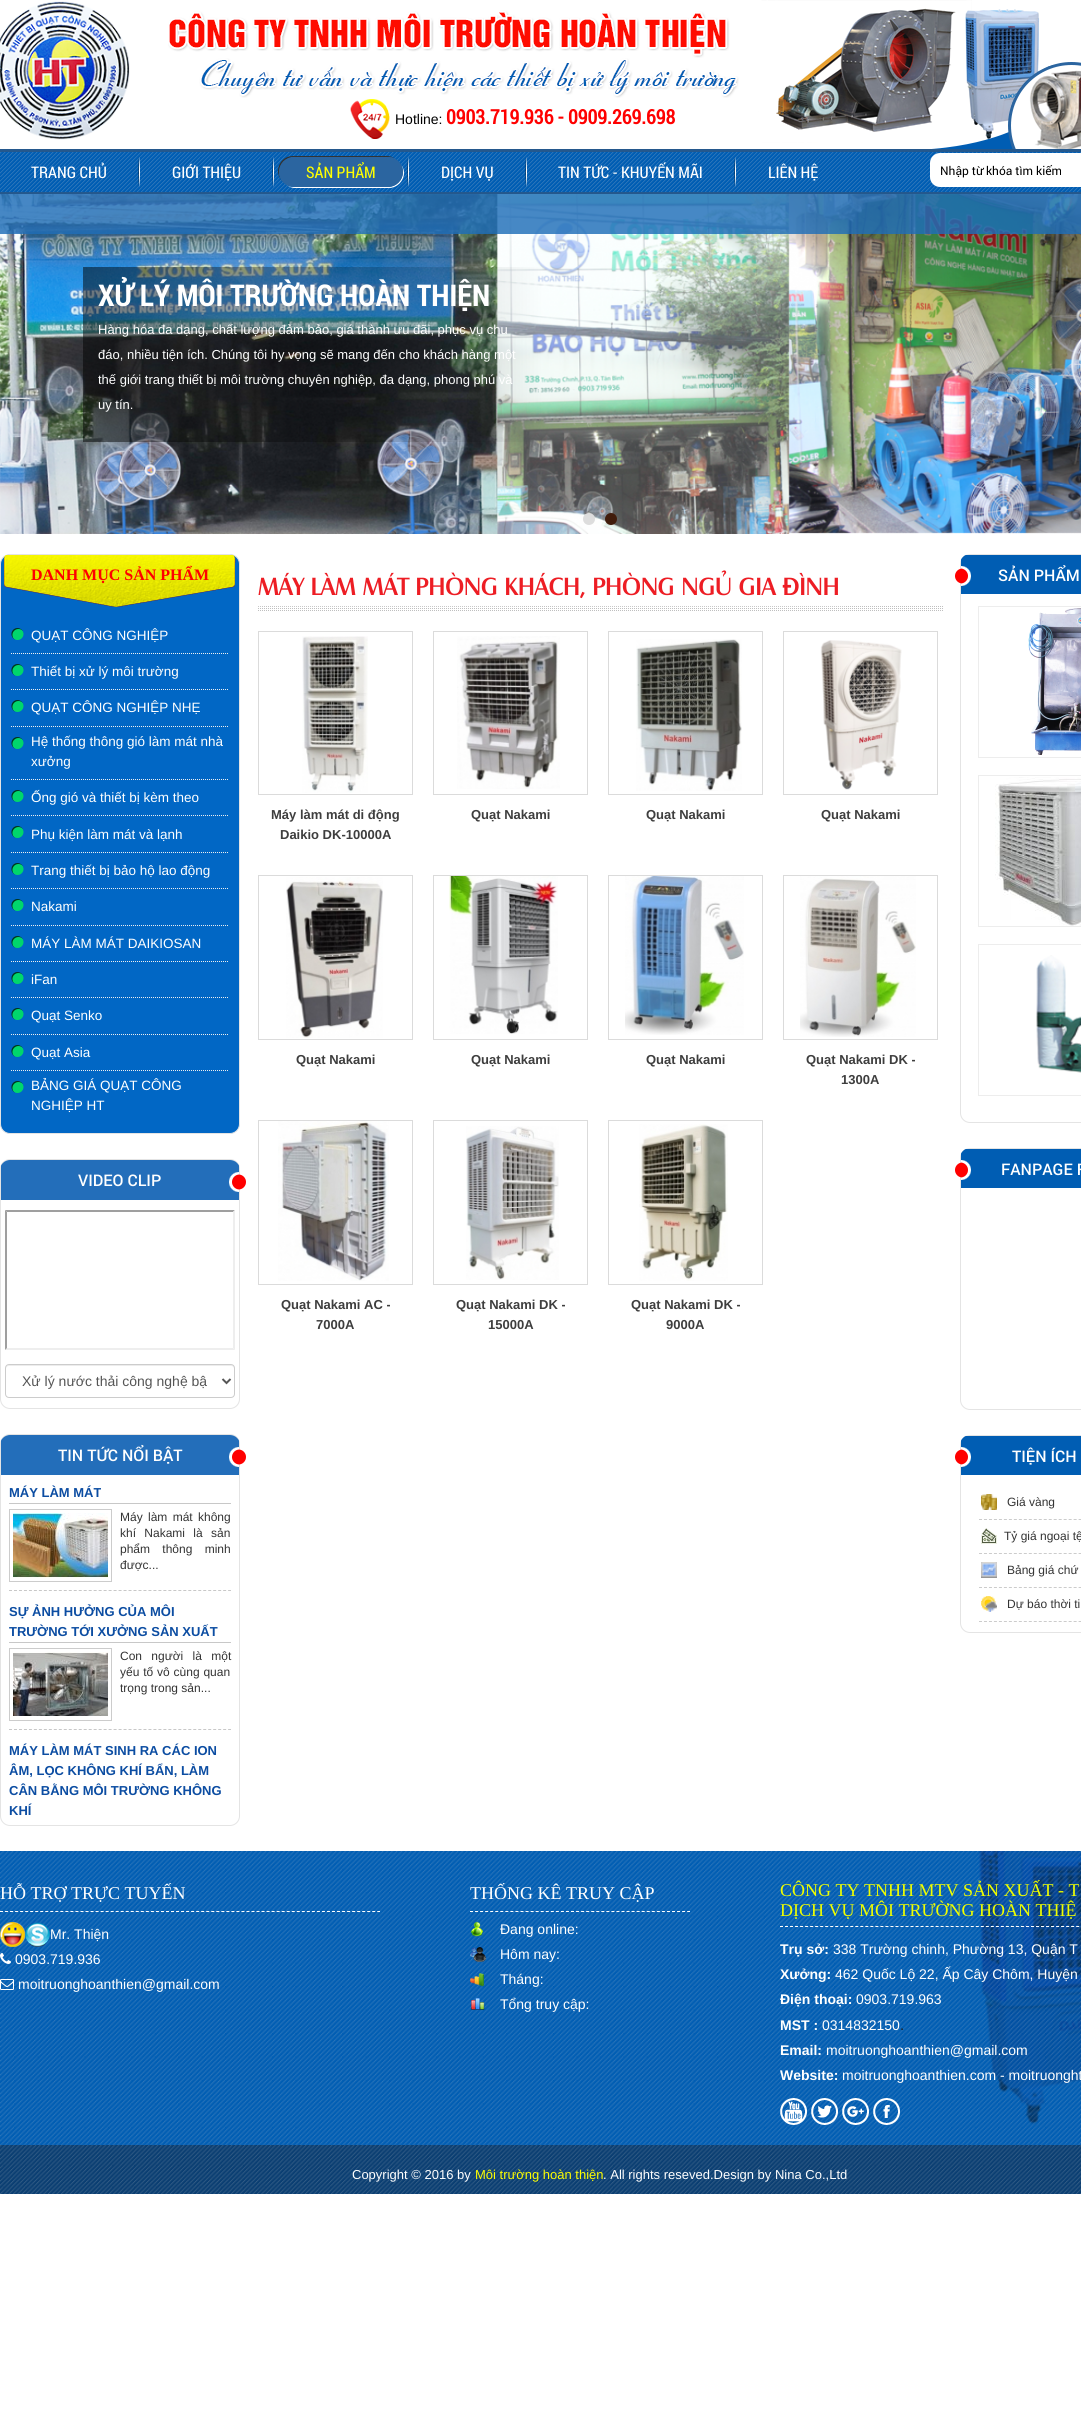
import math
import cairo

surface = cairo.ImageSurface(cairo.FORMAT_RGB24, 1081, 2436)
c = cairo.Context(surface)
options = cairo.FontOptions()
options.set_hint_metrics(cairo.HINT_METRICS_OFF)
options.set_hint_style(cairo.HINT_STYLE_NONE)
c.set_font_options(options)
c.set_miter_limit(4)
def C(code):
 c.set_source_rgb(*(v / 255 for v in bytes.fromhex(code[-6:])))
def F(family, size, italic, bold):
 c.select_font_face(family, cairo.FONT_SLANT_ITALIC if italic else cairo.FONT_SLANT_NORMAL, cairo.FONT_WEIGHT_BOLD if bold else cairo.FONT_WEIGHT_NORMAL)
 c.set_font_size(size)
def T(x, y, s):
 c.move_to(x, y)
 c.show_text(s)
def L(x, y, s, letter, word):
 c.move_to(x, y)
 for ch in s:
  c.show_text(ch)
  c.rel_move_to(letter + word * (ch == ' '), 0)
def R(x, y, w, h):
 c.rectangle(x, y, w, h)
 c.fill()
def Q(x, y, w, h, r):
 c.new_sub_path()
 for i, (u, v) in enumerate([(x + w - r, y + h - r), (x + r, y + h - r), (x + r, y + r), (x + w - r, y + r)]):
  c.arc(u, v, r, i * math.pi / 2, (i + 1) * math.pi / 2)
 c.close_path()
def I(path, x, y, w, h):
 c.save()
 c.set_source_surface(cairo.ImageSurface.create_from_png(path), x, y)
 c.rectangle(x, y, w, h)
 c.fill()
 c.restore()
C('ffffff')
c.paint()
I('1.png',0,1,130,139)
I('2.png',168,0,913,149)
I('3.png',350,99,40,40)
F('Liberation Sans',14,0,0)
C('000000')
T(395,124,'Hotline:')
F('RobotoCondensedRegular',20,0,1)
C('ff0000')
T(446,124,'0903.719.936 - 0909.269.698')
I('4.png',0,149,1081,45)
F('RobotoCondensedRegular',16,0,0)
C('ffffff')
T(31,178,'TRANG CHỦ')
I('5.png',138,157,2,30)
T(172,178,'GIỚI THIỆU')
I('6.png',272,157,2,30)
c.new_path()
c.move_to(284,183)
c.curve_to(287,186,291,188,295,188)
c.line_to(389,188)
c.curve_to(397,188,404,181,404,173)
c.curve_to(404,169,402,165,399,162)
c.curve_to(402,165,403,168,403,172)
c.curve_to(403,180,396,187,388,187)
c.line_to(294,187)
c.curve_to(290,187,287,186,284,183)
c.close_path()
c.fill()
C('333333')
c.new_path()
c.move_to(293,156)
c.curve_to(279,156,273,173,283,182)
c.curve_to(280,179,279,176,279,172)
c.curve_to(279,164,286,157,294,157)
c.line_to(388,157)
c.curve_to(392,157,395,158,398,161)
c.curve_to(395,158,391,156,387,156)
c.close_path()
c.fill()
C('2b65a0')
Q(279,157,124,30,15)
c.fill()
C('ffff00')
T(306,178,'SẢN PHẨM')
I('7.png',407,157,2,30)
C('ffffff')
T(441,178,'DỊCH VỤ')
I('8.png',525,157,2,30)
T(558,178,'TIN TỨC - KHUYẾN MÃI')
I('5.png',734,157,2,30)
T(768,178,'LIÊN HỆ')
Q(930,153,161,34,10)
c.fill()
F('Roboto',12,0,0)
C('000000')
T(940,175,'Nhập từ khóa tìm kiếm')
I('9.png',0,194,1081,340)
c.set_source_rgba(0.122,0.431,0.722,0.82)
R(0,194,1081,40)
F('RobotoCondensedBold',30,0,1)
C('ffffff')
T(98,306,'XỬ LÝ MÔI TRƯỜNG HOÀN THIỆN')
F('Liberation Sans',13,0,0)
T(98,334,'Hàng hóa đa dạng, chất lượng đảm bảo, giá thành ưu đãi, phục vụ chu')
T(98,359,'đáo, nhiều tiện ích. Chúng tôi hy vọng sẽ mang đến cho khách hàng một')
T(98,384,'thế giới trang thiết bị môi trường chuyên nghiệp, đa dạng, phong phú và')
T(98,409,'uy tín.')
C('dddddd')
c.new_path()
c.arc(589,519,6,0,2 * math.pi)
c.fill()
C('411c0b')
c.arc(611,519,6,0,2 * math.pi)
c.fill()
C('0167c5')
Q(.5,554.5,239,579,9.5)
c.fill_preserve()
C('e4e4e4')
c.set_line_width(1)
c.stroke()
I('10.png',4,555,232,52)
F('Liberation Serif',16,0,1)
C('ff0000')
T(31,580,'DANH MỤC SẢN PHẨM')
I('11.png',11,628,13,12)
c.new_path()
c.move_to(11,653.5)
c.line_to(229,653.5)
C('efefef')
c.set_dash([1,1])
c.stroke()
F('Liberation Sans',13.5,0,0)
C('ffffff')
T(31,640,'QUẠT CÔNG NGHIỆP')
I('11.png',11,664,13,12)
c.new_path()
c.move_to(11,689.5)
c.line_to(229,689.5)
C('efefef')
c.stroke()
C('ffffff')
T(31,676,'Thiết bị xử lý môi trường')
I('11.png',11,700,13,12)
c.new_path()
c.move_to(11,726.5)
c.line_to(229,726.5)
C('efefef')
c.stroke()
C('ffffff')
T(31,712,'QUẠT CÔNG NGHIỆP NHẸ')
I('11.png',11,737,13,12)
c.new_path()
c.move_to(11,779.5)
c.line_to(229,779.5)
C('efefef')
c.stroke()
C('ffffff')
T(31,746,'Hệ thống thông gió làm mát nhà')
T(31,766,'xưởng')
I('11.png',11,790,13,12)
c.new_path()
c.move_to(11,815.5)
c.line_to(229,815.5)
C('efefef')
c.stroke()
C('ffffff')
T(31,802,'Ống gió và thiết bị kèm theo')
I('11.png',11,826,13,12)
c.new_path()
c.move_to(11,852.5)
c.line_to(229,852.5)
C('efefef')
c.stroke()
C('ffffff')
T(31,839,'Phụ kiện làm mát và lạnh')
I('11.png',11,863,13,12)
c.new_path()
c.move_to(11,888.5)
c.line_to(229,888.5)
C('efefef')
c.stroke()
C('ffffff')
T(31,875,'Trang thiết bị bảo hộ lao động')
I('11.png',11,899,13,12)
c.new_path()
c.move_to(11,925.5)
c.line_to(229,925.5)
C('efefef')
c.stroke()
C('ffffff')
T(31,911,'Nakami')
I('11.png',11,936,13,12)
c.new_path()
c.move_to(11,961.5)
c.line_to(229,961.5)
C('efefef')
c.stroke()
C('ffffff')
T(31,948,'MÁY LÀM MÁT DAIKIOSAN')
I('11.png',11,972,13,12)
c.new_path()
c.move_to(11,997.5)
c.line_to(229,997.5)
C('efefef')
c.stroke()
C('ffffff')
T(31,984,'iFan')
I('11.png',11,1008,13,12)
c.new_path()
c.move_to(11,1034.5)
c.line_to(229,1034.5)
C('efefef')
c.stroke()
C('ffffff')
T(31,1020,'Quạt Senko')
I('11.png',11,1045,13,12)
c.new_path()
c.move_to(11,1070.5)
c.line_to(229,1070.5)
C('efefef')
c.stroke()
C('ffffff')
T(31,1057,'Quạt Asia')
I('11.png',11,1081,13,12)
T(31,1090,'BẢNG GIÁ QUẠT CÔNG')
T(31,1110,'NGHIỆP HT')
Q(.5,1159.5,239,249,9.5)
C('e4e4e4')
c.set_dash([])
c.stroke()
I('12.png',1,1160,238,40)
F('Roboto Medium',16,0,0)
C('ffffff')
T(78,1186,'VIDEO CLIP')
I('13.png',239,1174,7,16)
C('9f9f9f')
c.new_path()
c.move_to(5,1210)
c.line_to(235,1210)
c.line_to(233,1212)
c.line_to(7,1212)
c.close_path()
c.fill()
C('eeeeee')
c.new_path()
c.move_to(235,1210)
c.line_to(235,1350)
c.line_to(233,1348)
c.line_to(233,1212)
c.close_path()
c.fill()
c.new_path()
c.move_to(235,1350)
c.line_to(5,1350)
c.line_to(7,1348)
c.line_to(233,1348)
c.close_path()
c.fill()
C('9f9f9f')
c.new_path()
c.move_to(5,1350)
c.line_to(5,1210)
c.line_to(7,1212)
c.line_to(7,1348)
c.close_path()
c.fill()
C('ececec')
c.new_path()
c.move_to(9,1366)
c.line_to(231,1366)
c.curve_to(233,1366,234,1367,234,1369)
c.line_to(234,1368)
c.curve_to(234,1366,233,1365,231,1365)
c.line_to(9,1365)
c.curve_to(7,1365,6,1366,6,1368)
c.line_to(6,1369)
c.curve_to(6,1367,7,1366,9,1366)
c.close_path()
c.fill()
Q(5.5,1364.5,229,33,3.5)
C('cccccc')
c.stroke()
c.new_path()
c.move_to(222.5,1379)
c.line_to(226.5,1383)
c.line_to(230.5,1379)
C('555555')
c.set_line_width(2)
c.stroke()
F('Liberation Sans',14,0,0)
T(22,1386,'Xử lý nước thải công nghệ bậ')
Q(.5,1434.5,239,391,9.5)
C('e4e4e4')
c.set_line_width(1)
c.stroke()
I('12.png',1,1435,238,40)
F('Roboto Medium',16,0,0)
C('ffffff')
T(58,1461,'TIN TỨC NỔI BẬT')
I('13.png',239,1449,7,16)
c.new_path()
c.move_to(9,1590.5)
c.line_to(231,1590.5)
C('c8c8c8')
c.set_dash([3,1.98])
c.stroke()
R(9,1503,222,1)
F('Liberation Sans',13,0,1)
C('0c4da2')
T(9,1497,'MÁY LÀM MÁT')
c.rectangle(9.5,1509.5,102,72)
C('cccccc')
c.set_dash([])
c.stroke()
I('14.png',13,1513,95,65)
F('Liberation Sans',12,0,0)
C('333333')
L(120,1521,'Máy làm mát không',0,2)
L(120,1537,'khí Nakami là sản',0,5)
L(120,1553,'phẩm thông minh',0,9)
T(120,1569,'được...')
c.new_path()
c.move_to(9,1729.5)
c.line_to(231,1729.5)
C('c8c8c8')
c.set_dash([3,1.98])
c.stroke()
R(9,1642,222,1)
F('Liberation Sans',13,0,1)
C('0c4da2')
T(9,1616,'SỰ ẢNH HƯỞNG CỦA MÔI')
T(9,1636,'TRƯỜNG TỚI XƯỞNG SẢN XUẤT')
c.rectangle(9.5,1648.5,102,72)
C('cccccc')
c.set_dash([])
c.stroke()
I('15.png',13,1652,95,64)
F('Liberation Sans',12,0,0)
C('333333')
L(120,1660,'Con người là một',0,6)
L(120,1676,'yếu tố vô cùng quan',0,.5)
T(120,1692,'trọng trong sản...')
F('Liberation Sans',13,0,1)
C('0c4da2')
T(9,1755,'MÁY LÀM MÁT SINH RA CÁC ION')
T(9,1775,'ÂM, LỌC KHÔNG KHÍ BẨN, LÀM')
T(9,1795,'CÂN BẰNG MÔI TRƯỜNG KHÔNG')
T(9,1815,'KHÍ')
I('16.png',258,606,685,5)
F('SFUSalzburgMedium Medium',24,0,0)
C('ed1d24')
T(258,595,'MÁY LÀM MÁT PHÒNG KHÁCH, PHÒNG NGỦ GIA ĐÌNH')
c.rectangle(258.5,631.5,154,163)
C('dbdbdb')
c.stroke()
I('17.png',302,636,66,157)
F('Liberation Sans',13,0,1)
C('3e3e3e')
T(271,819,'Máy làm mát di động')
T(280,839,'Daikio DK-10000A')
c.rectangle(433.5,631.5,154,163)
C('dbdbdb')
c.stroke()
I('18.png',457,636,103,153)
C('3e3e3e')
T(471,819,'Quạt Nakami')
c.rectangle(608.5,631.5,154,163)
C('dbdbdb')
c.stroke()
I('19.png',636,639,106,152)
C('3e3e3e')
T(646,819,'Quạt Nakami')
c.rectangle(783.5,631.5,154,163)
C('dbdbdb')
c.stroke()
I('20.png',820,640,82,150)
C('3e3e3e')
T(821,819,'Quạt Nakami')
c.rectangle(258.5,875.5,154,164)
C('dbdbdb')
c.stroke()
I('21.png',286,877,97,161)
C('3e3e3e')
T(296,1064,'Quạt Nakami')
c.rectangle(433.5,875.5,154,164)
C('dbdbdb')
c.stroke()
I('22.png',449,876,109,158)
C('3e3e3e')
T(471,1064,'Quạt Nakami')
c.rectangle(608.5,875.5,154,164)
C('dbdbdb')
c.stroke()
I('23.png',625,876,119,159)
C('3e3e3e')
T(646,1064,'Quạt Nakami')
c.rectangle(783.5,875.5,154,164)
C('dbdbdb')
c.stroke()
I('24.png',800,876,116,161)
C('3e3e3e')
T(806,1064,'Quạt Nakami DK -')
T(841,1084,'1300A')
c.rectangle(258.5,1120.5,154,164)
C('dbdbdb')
c.stroke()
I('25.png',278,1121,111,160)
C('3e3e3e')
T(281,1309,'Quạt Nakami AC -')
T(316,1329,'7000A')
c.rectangle(433.5,1120.5,154,164)
C('dbdbdb')
c.stroke()
I('26.png',466,1126,93,154)
C('3e3e3e')
T(456,1309,'Quạt Nakami DK -')
T(488,1329,'15000A')
c.rectangle(608.5,1120.5,154,164)
C('dbdbdb')
c.stroke()
I('27.png',639,1124,89,157)
C('3e3e3e')
T(631,1309,'Quạt Nakami DK -')
T(666,1329,'9000A')
Q(960.5,554.5,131,568,9.5)
C('e4e4e4')
c.stroke()
I('28.png',961,555,120,39)
I('29.png',955,568,6,16)
F('Roboto Medium',16,0,0)
C('ffffff')
T(998,581,'SẢN PHẨM')
c.rectangle(978.5,606.5,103,151)
C('ededed')
c.stroke()
I('30.png',1028,608,53,147)
c.rectangle(978.5,775.5,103,151)
c.stroke()
I('31.png',995,777,86,149)
c.rectangle(978.5,944.5,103,151)
c.stroke()
I('32.png',1036,955,45,118)
Q(960.5,1148.5,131,261,9.5)
C('e4e4e4')
c.stroke()
I('28.png',961,1149,120,39)
I('29.png',955,1162,6,16)
C('ffffff')
T(1001,1175,'FANPAGE F')
Q(960.5,1435.5,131,197,9.5)
C('e4e4e4')
c.stroke()
I('28.png',961,1436,120,39)
I('29.png',955,1449,6,16)
C('ffffff')
T(1012,1462,'TIỆN ÍCH')
c.new_path()
c.move_to(979,1519.5)
c.line_to(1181,1519.5)
C('cccccc')
c.set_dash([3,1.98])
c.stroke()
I('33.png',981,1494,16,16)
F('Liberation Sans',12,0,0)
C('333333')
T(1007,1506,'Giá vàng')
c.new_path()
c.move_to(979,1553.5)
c.line_to(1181,1553.5)
C('cccccc')
c.stroke()
I('34.png',981,1528,16,16)
C('333333')
T(1004,1540,'Tỷ giá ngoại tệ')
c.new_path()
c.move_to(979,1587.5)
c.line_to(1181,1587.5)
C('cccccc')
c.stroke()
I('35.png',981,1562,16,16)
C('333333')
T(1007,1574,'Bảng giá chứ')
c.new_path()
c.move_to(979,1621.5)
c.line_to(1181,1621.5)
C('cccccc')
c.stroke()
I('36.png',981,1596,16,16)
C('333333')
T(1007,1608,'Dự báo thời ti')
I('37.png',0,1851,1081,294)
c.new_path()
c.move_to(0,1911.5)
c.line_to(380,1911.5)
C('ffffff')
c.set_dash([3,2.03])
c.stroke()
F('Liberation Serif',18,0,0)
T(0,1899,'HỖ TRỢ TRỰC TUYẾN')
I('38.png',0,1922,25,25)
I('39.png',25,1922,25,25)
F('Liberation Sans',14,0,0)
T(50,1939,'Mr. Thiện')
I('40.png',0,1953,11,11)
T(15,1964,'0903.719.936')
I('41.png',0,1979,14,11)
T(18,1989,'moitruonghoanthien@gmail.com')
c.new_path()
c.move_to(470,1911.5)
c.line_to(690,1911.5)
c.set_dash([3,2.05])
c.stroke()
F('Liberation Serif',18,0,0)
T(470,1899,'THỐNG KÊ TRUY CẬP')
I('42.png',470,1922,14,15)
F('Liberation Sans',14,0,0)
T(500,1934,'Đang online:')
I('43.png',470,1947,16,15)
T(500,1959,'Hôm nay:')
I('44.png',470,1973,14,14)
T(500,1984,'Tháng:')
I('45.png',471,1998,14,12)
T(500,2009,'Tổng truy cập:')
c.new_path()
c.move_to(780,1926.5)
c.line_to(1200,1926.5)
c.set_dash([3,2.02])
c.stroke()
F('Liberation Serif',18,0,0)
C('f0ff00')
T(780,1896,'CÔNG TY TNHH MTV SẢN XUẤT - T')
T(780,1916,'DỊCH VỤ MÔI TRƯỜNG HOÀN THIỆ')
F('Liberation Sans',14,0,1)
C('ffffff')
T(780,1954,'Trụ sở:')
F('Liberation Sans',14,0,0)
T(833,1954,'338 Trường chinh, Phường 13, Quận T')
F('Liberation Sans',14,0,1)
T(780,1979,'Xưởng:')
F('Liberation Sans',14,0,0)
T(835,1979,'462 Quốc Lộ 22, Ấp Cây Chôm, Huyện')
F('Liberation Sans',14,0,1)
T(780,2004,'Điện thoại:')
F('Liberation Sans',14,0,0)
T(856,2004,'0903.719.963')
F('Liberation Sans',14,0,1)
T(780,2030,'MST :')
F('Liberation Sans',14,0,0)
T(822,2030,'0314832150')
F('Liberation Sans',15,0,0)
C('222222')
T(900,2030,'.')
F('Liberation Sans',14,0,1)
C('ffffff')
T(780,2055,'Email:')
F('Liberation Sans',14,0,0)
T(826,2055,'moitruonghoanthien@gmail.com')
F('Liberation Sans',14,0,1)
T(780,2080,'Website:')
F('Liberation Sans',14,0,0)
T(842,2080,'moitruonghoanthien.com - moitruonght')
I('46.png',780,2098,27,27)
I('47.png',811,2098,27,27)
I('48.png',842,2098,27,27)
I('49.png',873,2098,27,27)
I('50.png',0,2145,1081,49)
F('Liberation Sans',13,0,0)
T(352,2179,'Copyright © 2016 by')
C('ffff00')
T(475,2179,'Môi trường hoàn thiện')
C('ffffff')
T(603,2179,'. All rights reseved.Design by Nina Co.,Ltd')
surface.write_to_png('o.png')
